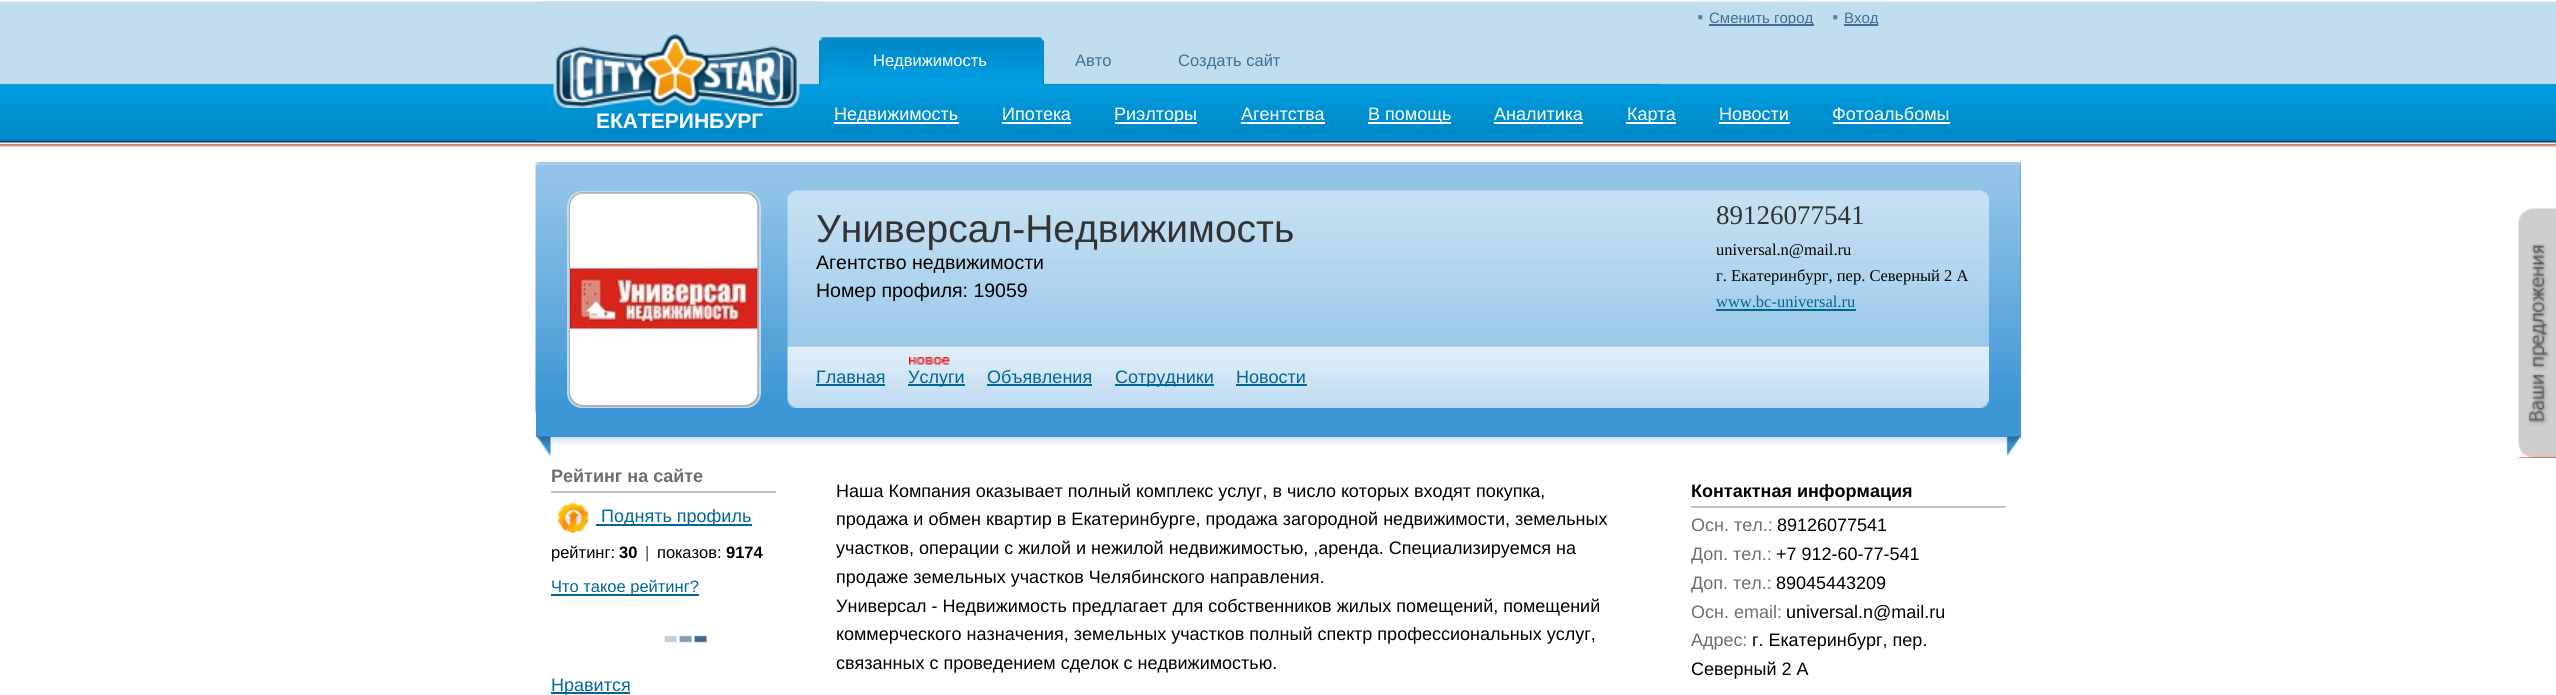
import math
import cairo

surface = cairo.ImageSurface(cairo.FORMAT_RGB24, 2556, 695)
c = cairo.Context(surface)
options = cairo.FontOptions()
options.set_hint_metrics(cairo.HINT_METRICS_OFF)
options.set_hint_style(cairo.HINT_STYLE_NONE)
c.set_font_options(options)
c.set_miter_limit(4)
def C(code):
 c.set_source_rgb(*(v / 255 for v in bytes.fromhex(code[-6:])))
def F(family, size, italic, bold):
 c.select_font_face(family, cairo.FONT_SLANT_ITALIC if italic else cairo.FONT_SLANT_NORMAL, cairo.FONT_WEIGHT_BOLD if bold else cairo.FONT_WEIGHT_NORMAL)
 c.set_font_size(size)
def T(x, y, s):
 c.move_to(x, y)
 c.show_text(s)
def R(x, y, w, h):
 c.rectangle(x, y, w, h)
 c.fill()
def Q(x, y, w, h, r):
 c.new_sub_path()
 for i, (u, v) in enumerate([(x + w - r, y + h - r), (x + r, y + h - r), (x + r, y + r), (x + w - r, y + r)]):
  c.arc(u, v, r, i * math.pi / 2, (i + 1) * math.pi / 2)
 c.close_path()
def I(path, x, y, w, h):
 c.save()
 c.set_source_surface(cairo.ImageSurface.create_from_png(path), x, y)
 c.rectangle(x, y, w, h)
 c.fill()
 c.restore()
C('ffffff')
c.paint()
C('c0ddef')
R(0,146,2556,1)
I('1.png',0,1,2556,145)
I('2.png',540,1,279,140)
I('3.png',553,33,247,75)
F('Liberation Sans',21,0,1)
C('ffffff')
T(596,128,'ЕКАТЕРИНБУРГ')
I('4.png',1698,15,5,5)
C('406f93')
R(1709,24,105,2)
F('Liberation Sans',15,0,0)
T(1709,23,'Сменить город')
I('5.png',1833,15,5,5)
R(1844,24,34,2)
T(1844,23,'Вход')
I('6.png',819,84,840,2)
I('7.png',819,37,225,49)
I('8.png',819,37,222,49)
F('Liberation Sans',16.5,0,0)
C('ffffff')
T(873,66,'Недвижимость')
C('406f93')
T(1075,66,'Авто')
T(1178,66,'Создать сайт')
I('9.png',819,85,1197,56)
C('ffffff')
R(834,122,125,2)
F('Liberation Sans',18,0,0)
T(834,120,'Недвижимость')
T(1002,120,'Ипотека')
R(1002,122,69,2)
R(1115,122,82,2)
T(1114,120,'Риэлторы')
T(1241,120,'Агентства')
R(1241,122,84,2)
R(1368,122,83,2)
T(1368,120,'В помощь')
T(1494,120,'Аналитика')
R(1494,122,89,2)
R(1626,122,50,2)
T(1627,120,'Карта')
T(1719,120,'Новости')
R(1719,122,71,2)
T(1832,120,'Фотоальбомы')
R(1833,122,117,2)
C('3e97d5')
R(536,162,1485,275)
I('10.png',535,162,1486,251)
Q(568,192,192,215,14)
C('bcdbf0')
c.stroke()
Q(570,193,188,213,14)
C('b1b1b1')
c.stroke()
I('11.png',570,193,188,212)
I('13.png',787,346,1202,62)
I('12.png',787,190,1202,157)
F('Liberation Sans',39,0,0)
C('333333')
T(816,242,'Универсал-Недвижимость')
F('Liberation Serif',27,0,0)
T(1716,224,'89126077541')
F('Liberation Serif',16.5,0,0)
C('000000')
T(1716,255,'universal.n@mail.ru')
T(1716,281,'г. Екатеринбург, пер. Северный 2 А')
C('006699')
T(1716,307,'www.bc-universal.ru')
R(1716,309,140,2)
F('Liberation Sans',19.5,0,0)
C('000000')
T(816,269,'Агентство недвижимости')
T(816,297,'Номер профиля: 19059')
F('Liberation Sans',18,0,0)
C('006699')
T(816,383,'Главная')
R(816,384,69,2)
I('14.png',909,357,41,8)
R(908,384,57,2)
T(908,383,'Услуги')
T(987,383,'Объявления')
R(987,384,105,2)
R(1115,384,99,2)
T(1115,383,'Сотрудники')
T(1236,383,'Новости')
R(1236,384,71,2)
I('15.png',537,436,1484,20)
C('c0c0c0')
R(551,491,225,2)
F('Liberation Sans',18,0,1)
C('6a6e71')
T(551,482,'Рейтинг на сайте')
I('16.png',558,502,30,31)
C('006699')
R(596,524,156,2)
F('Liberation Sans',18,0,0)
T(601,522,'Поднять профиль')
F('Liberation Sans',16.5,0,0)
C('000000')
T(551,558,'рейтинг:')
F('Liberation Sans',16.5,0,1)
T(619,558,'30')
F('Liberation Sans',16.5,0,0)
C('505050')
T(645,558,'|')
C('000000')
T(657,558,'показов:')
F('Liberation Sans',16.5,0,1)
T(726,558,'9174')
C('006699')
R(551,594,148,2)
F('Liberation Sans',16.5,0,0)
T(551,592,'Что такое рейтинг?')
I('17.png',664,635,43,8)
R(551,692,79,2)
F('Liberation Sans',18,0,0)
T(551,691,'Нравится')
C('000000')
T(836,497,'Наша Компания оказывает полный комплекс услуг, в число которых входят покупка,')
T(836,525,'продажа и обмен квартир в Екатеринбурге, продажа загородной недвижимости, земельных')
T(836,554,'участков, операции с жилой и нежилой недвижимостью, ,аренда. Специализируемся на')
T(836,583,'продаже земельных участков Челябинского направления.')
T(836,612,'Универсал - Недвижимость предлагает для собственников жилых помещений, помещений')
T(836,640,'коммерческого назначения, земельных участков полный спектр профессиональных услуг,')
T(836,669,'связанных с проведением сделок с недвижимостью.')
C('c2c2c2')
R(1691,506,315,2)
F('Liberation Sans',18,0,1)
C('000000')
T(1691,497,'Контактная информация')
F('Liberation Sans',18,0,0)
C('6a6e71')
T(1691,531,'Осн. тел.:')
C('000000')
T(1777,531,'89126077541')
C('6a6e71')
T(1691,560,'Доп. тел.:')
C('000000')
T(1776,560,'+7 912-60-77-541')
C('6a6e71')
T(1691,589,'Доп. тел.:')
C('000000')
T(1776,589,'89045443209')
C('6a6e71')
T(1691,618,'Осн. email:')
C('000000')
T(1786,618,'universal.n@mail.ru')
C('6a6e71')
T(1691,646,'Адрес:')
C('000000')
T(1752,646,'г. Екатеринбург, пер.')
T(1691,675,'Северный 2 А')
C('ff0000')
R(2519,457,37,1)
I('18.png',2518,208,38,250)
surface.write_to_png('o.png')
